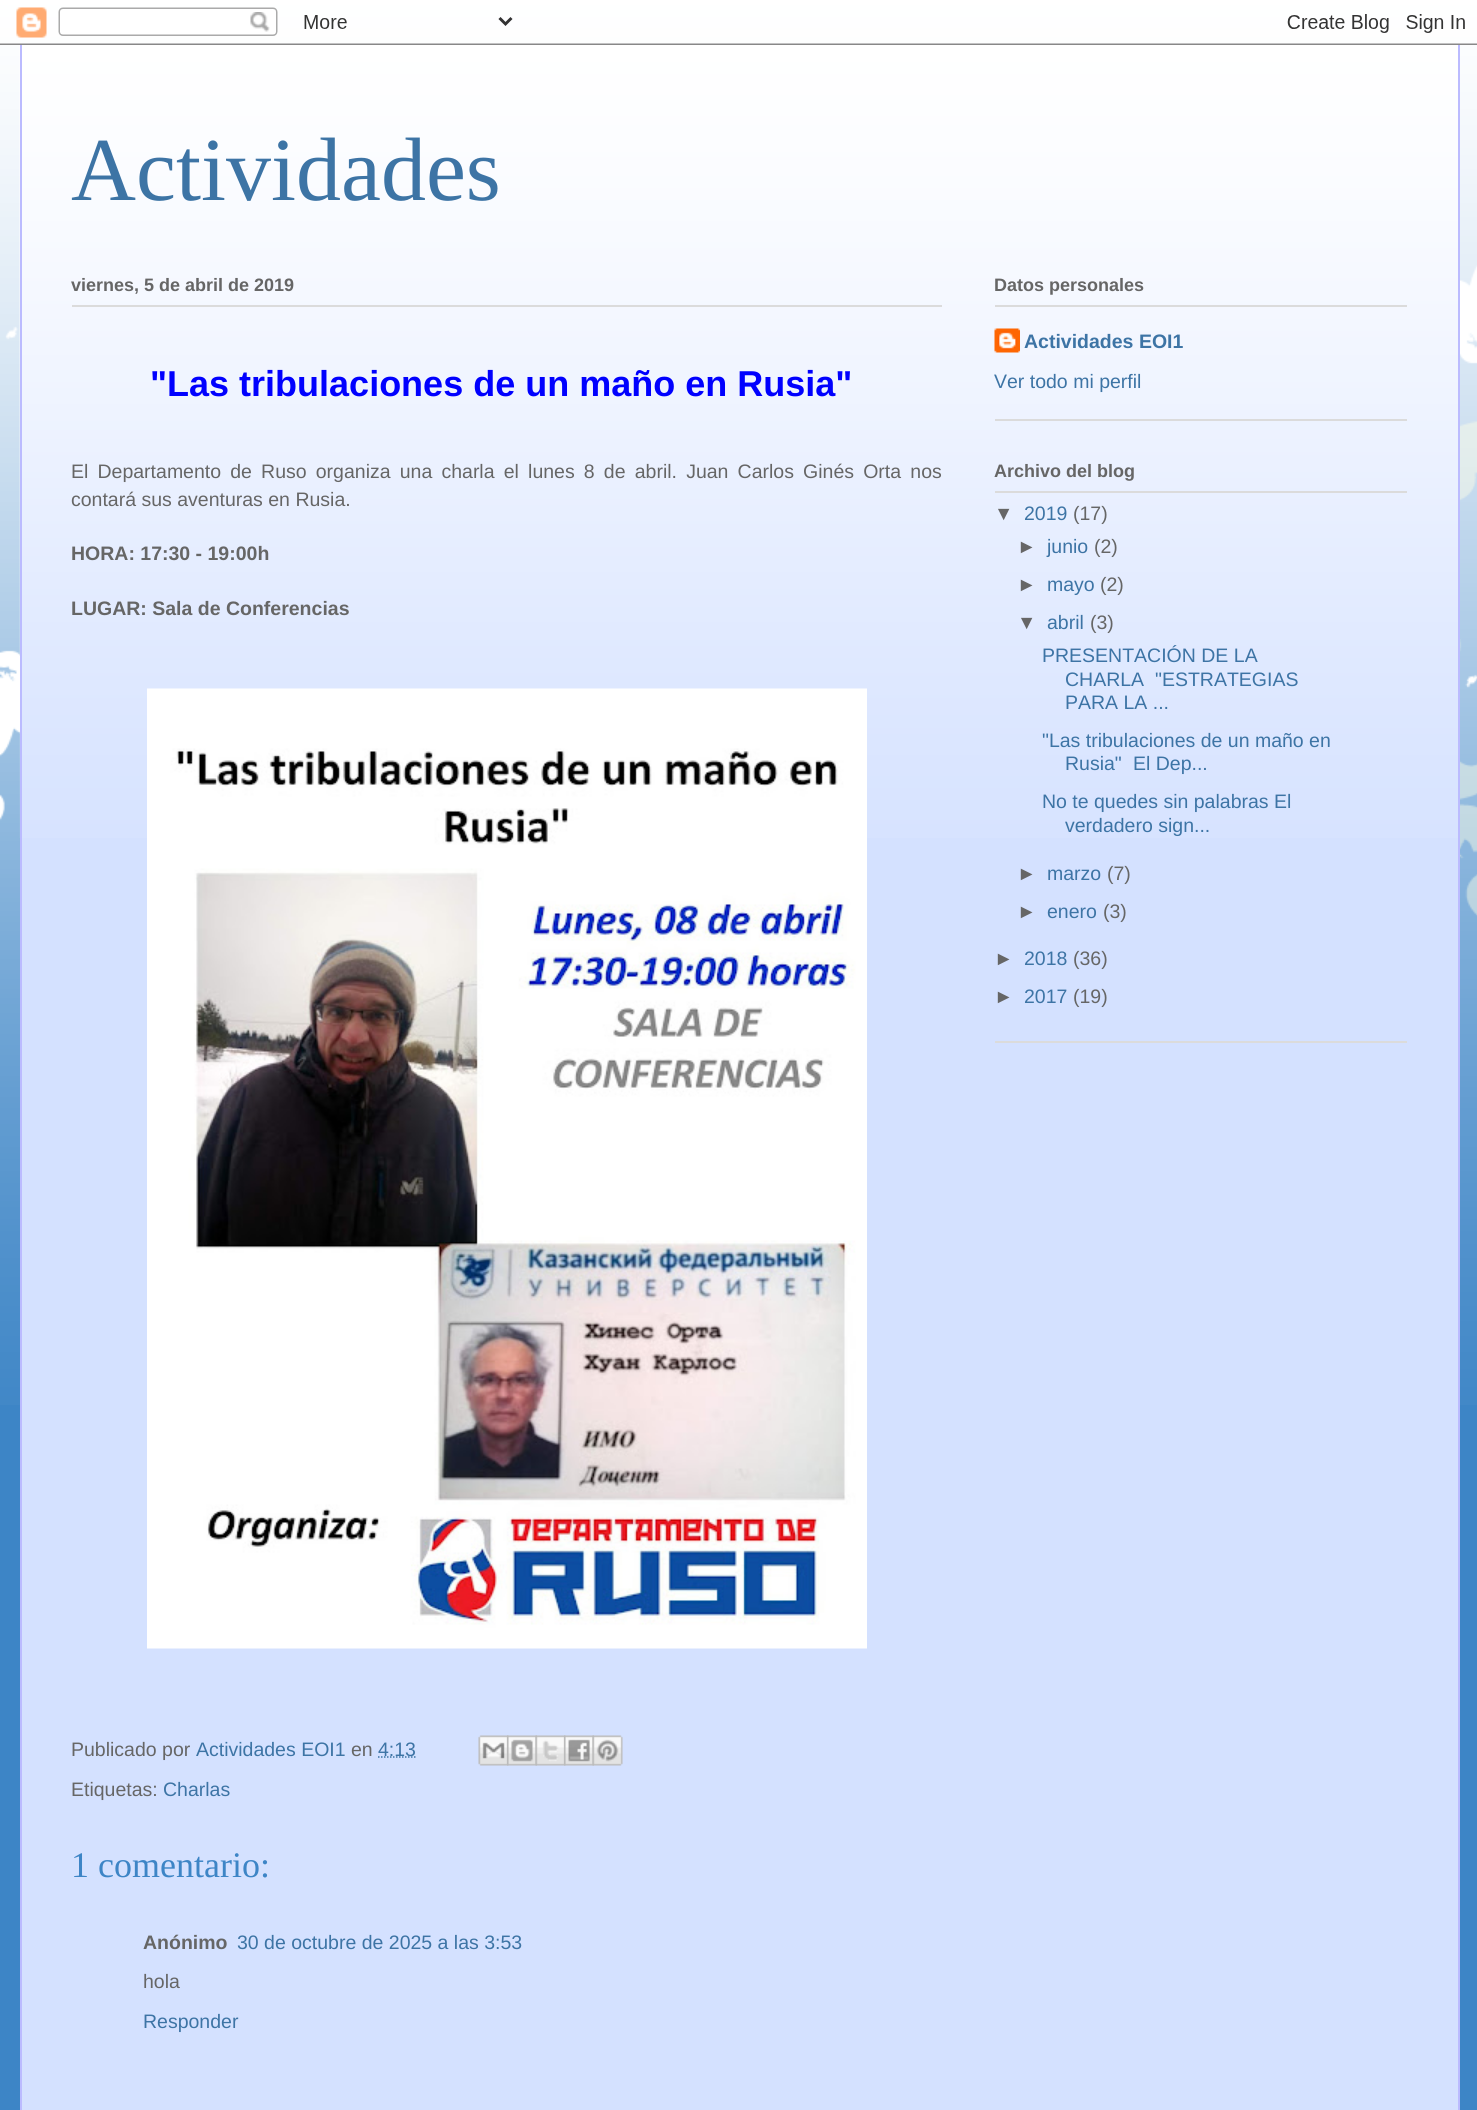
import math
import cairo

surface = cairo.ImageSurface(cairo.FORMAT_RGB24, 1477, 2110)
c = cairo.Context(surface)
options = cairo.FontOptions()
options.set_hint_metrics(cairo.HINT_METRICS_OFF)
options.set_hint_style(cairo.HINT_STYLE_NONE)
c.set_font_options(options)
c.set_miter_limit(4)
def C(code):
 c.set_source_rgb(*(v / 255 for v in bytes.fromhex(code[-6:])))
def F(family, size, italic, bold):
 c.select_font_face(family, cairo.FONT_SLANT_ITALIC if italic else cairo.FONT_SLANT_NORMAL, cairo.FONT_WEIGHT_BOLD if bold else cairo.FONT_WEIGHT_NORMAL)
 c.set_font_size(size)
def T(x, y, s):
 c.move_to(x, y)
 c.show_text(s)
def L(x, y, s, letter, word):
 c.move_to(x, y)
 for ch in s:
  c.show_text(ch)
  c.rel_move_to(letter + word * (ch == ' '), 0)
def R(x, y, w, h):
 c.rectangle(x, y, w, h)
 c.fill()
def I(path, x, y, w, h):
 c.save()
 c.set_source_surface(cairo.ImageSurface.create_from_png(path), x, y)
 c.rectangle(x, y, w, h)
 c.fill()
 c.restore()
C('3d85c6')
c.paint()
I('1.png',0,0,1477,1405)
I('2.png',0,7,1477,38)
C('d4e1ff')
R(22,55,1436,2055)
I('3.png',19,45,1439,793)
C('bbbbff')
R(1458,45,2,2065)
R(20,45,2,2065)
F('Liberation Serif',90,0,0)
C('3d74a5')
T(71,200,'Actividades')
C('dbdbdb')
R(72,305,870,2)
F('Liberation Sans',18,0,1)
C('666666')
T(71,291,'viernes, 5 de abril de 2019')
F('Liberation Sans',36,0,1)
C('0000ff')
T(150,396,'"Las tribulaciones de un maño en Rusia"')
F('Liberation Sans',19.5,0,0)
C('666666')
L(71,478,'El Departamento de Ruso organiza una charla el lunes 8 de abril. Juan Carlos Ginés Orta nos',0,3.75)
T(71,506,'contará sus aventuras en Rusia.')
F('Liberation Sans',19.5,0,1)
T(71,560,'HORA: 17:30 - 19:00h')
T(71,615,'LUGAR: Sala de Conferencias')
I('4.png',147,688,720,961)
F('Liberation Sans',19.5,0,0)
T(71,1756,'Publicado por')
C('3d74a5')
T(196,1756,'Actividades EOI1')
C('666666')
T(351,1756,'en')
c.new_path()
c.move_to(378,1757)
c.line_to(416,1757)
C('3d74a5')
c.set_line_width(1.5)
c.set_dash([1.5,1.5])
c.stroke()
T(378,1756,'4:13')
I('5.png',478,1735,31,31)
I('6.png',507,1735,30,31)
I('7.png',535,1735,31,31)
I('8.png',564,1735,30,31)
I('9.png',592,1735,31,31)
C('666666')
T(71,1796,'Etiquetas:')
C('3d74a5')
T(163,1796,'Charlas')
F('Liberation Serif',36,0,0)
C('3d85c6')
T(71,1877,'1 comentario:')
F('Liberation Sans',19.5,0,1)
C('666666')
T(143,1949,'Anónimo')
F('Liberation Sans',19.5,0,0)
C('3d74a5')
T(237,1949,'30 de octubre de 2025 a las 3:53')
C('666666')
T(143,1988,'hola')
C('3d74a5')
T(143,2028,'Responder')
C('dbdbdb')
R(995,419,412,2)
R(995,305,412,2)
F('Liberation Sans',18,0,1)
C('666666')
T(994,291,'Datos personales')
I('10.png',994,328,26,25)
F('Liberation Sans',19.5,0,1)
C('3d74a5')
T(1024,348,'Actividades EOI1')
F('Liberation Sans',19.5,0,0)
T(994,388,'Ver todo mi perfil')
C('dbdbdb')
R(995,1041,412,2)
R(995,491,412,2)
F('Liberation Sans',18,0,1)
C('666666')
T(994,477,'Archivo del blog')
F('Liberation Sans',19.5,0,0)
T(994,520,'▼')
C('3d74a5')
T(1024,520,'2019')
C('666666')
T(1073,520,'(17)')
T(1017,553,'►')
C('3d74a5')
T(1047,553,'junio')
C('666666')
T(1094,553,'(2)')
T(1017,591,'►')
C('3d74a5')
T(1047,591,'mayo')
C('666666')
T(1100,591,'(2)')
T(1017,629,'▼')
C('3d74a5')
T(1047,629,'abril')
C('666666')
T(1090,629,'(3)')
C('3d74a5')
T(1042,662,'PRESENTACIÓN DE LA')
T(1065,686,'CHARLA')
T(1155,686,'"ESTRATEGIAS')
T(1065,709,'PARA LA ...')
T(1042,747,'"Las tribulaciones de un maño en')
T(1065,770,'Rusia"')
T(1133,770,'El Dep...')
T(1042,808,'No te quedes sin palabras El')
T(1065,832,'verdadero sign...')
C('666666')
T(1017,880,'►')
C('3d74a5')
T(1047,880,'marzo')
C('666666')
T(1107,880,'(7)')
T(1017,918,'►')
C('3d74a5')
T(1047,918,'enero')
C('666666')
T(1103,918,'(3)')
T(994,965,'►')
C('3d74a5')
T(1024,965,'2018')
C('666666')
T(1073,965,'(36)')
T(994,1003,'►')
C('3d74a5')
T(1024,1003,'2017')
C('666666')
T(1073,1003,'(19)')
surface.write_to_png('o.png')
